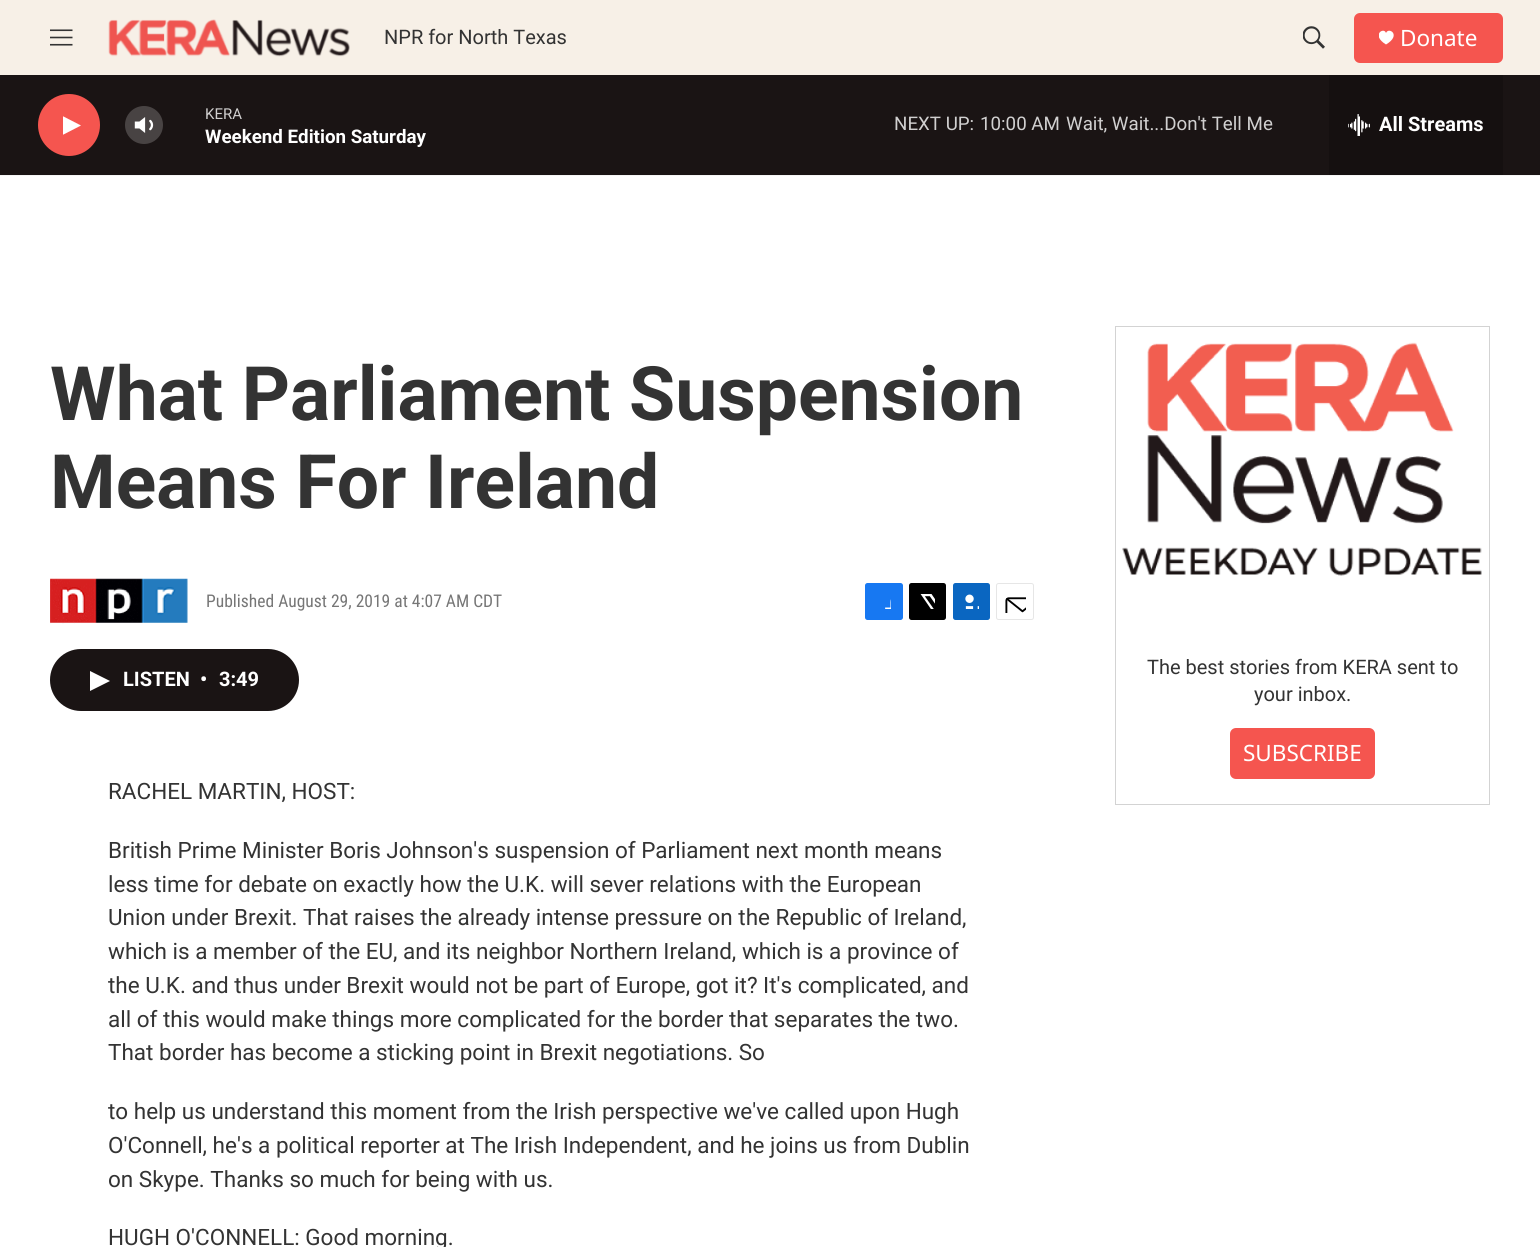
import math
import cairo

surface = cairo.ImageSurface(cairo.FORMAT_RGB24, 1540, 1247)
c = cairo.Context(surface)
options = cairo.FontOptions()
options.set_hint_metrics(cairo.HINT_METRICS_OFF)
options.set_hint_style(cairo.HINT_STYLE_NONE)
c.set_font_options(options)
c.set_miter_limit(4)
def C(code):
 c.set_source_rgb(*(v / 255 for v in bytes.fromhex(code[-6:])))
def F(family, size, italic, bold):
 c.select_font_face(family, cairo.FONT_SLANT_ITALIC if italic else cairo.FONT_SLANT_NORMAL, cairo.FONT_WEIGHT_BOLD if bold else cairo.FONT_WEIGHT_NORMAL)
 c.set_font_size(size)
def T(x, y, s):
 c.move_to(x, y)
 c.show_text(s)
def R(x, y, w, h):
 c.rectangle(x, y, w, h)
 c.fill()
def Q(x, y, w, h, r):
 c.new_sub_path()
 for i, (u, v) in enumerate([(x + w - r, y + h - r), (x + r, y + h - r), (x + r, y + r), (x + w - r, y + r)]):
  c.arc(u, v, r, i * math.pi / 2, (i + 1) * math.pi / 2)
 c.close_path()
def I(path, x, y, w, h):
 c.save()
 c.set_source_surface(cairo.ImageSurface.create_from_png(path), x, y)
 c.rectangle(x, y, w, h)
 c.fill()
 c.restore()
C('ffffff')
c.paint()
C('f7f0e7')
R(0,0,1540,75)
C('f5f5f5')
R(0,175,1540,1)
I('1.png',50,29,23,17)
I('2.png',108,19,242,38)
F('Roboto',20,0,0)
C('333333')
T(384,44,'NPR for North Texas')
I('3.png',1303,26,22,23)
C('f5554f')
Q(1354,13,149,50,6)
c.fill()
c.save()
c.rectangle(1379,30,15,15)
c.clip()
C('ffffff')
c.new_path()
c.move_to(1386,33)
c.curve_to(1384,26.5,1370.5,35,1386,44.5)
c.curve_to(1402,35,1388.5,26.5,1386,33)
c.close_path()
c.fill()
c.restore()
F('Noto Sans',22.5,0,0)
C('ffffff')
T(1400,46,'Donate')
C('1a1414')
R(0,75,1540,100)
C('f5554f')
c.new_path()
c.arc(69,125,31,0,2 * math.pi)
c.fill()
c.save()
c.rectangle(63,114,18,24)
c.clip()
C('ffffff')
c.new_path()
c.move_to(62.5,116)
c.line_to(81,125.5)
c.line_to(62.5,135)
c.close_path()
c.fill()
c.restore()
I('4.png',134,117,20,16)
c.set_source_rgba(1,1,1,0.2)
c.arc(144,125,19,0,2 * math.pi)
c.fill()
F('Roboto',15,0,0)
C('d1d0d0')
T(205,119,'KERA')
F('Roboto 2',18.75,0,1)
C('ffffff')
T(205,143,'Weekend Edition Saturday')
F('Roboto',18.75,0,0)
C('d1d0d0')
T(894,130,'NEXT UP:')
T(980,130,'10:00 AM')
T(1066,130,'Wait, Wait...Don\'t Tell Me')
C('151010')
R(1329,75,174,100)
I('5.png',1348,114,22,22)
F('Roboto 2',20,0,1)
C('ffffff')
T(1379,131,'All Streams')
F('Roboto',75,0,1)
C('333333')
T(50,420,'What Parliament Suspension')
T(50,508,'Means For Ireland')
I('6.png',50,578,138,46)
F('Roboto Condensed',17.5,0,0)
C('767676')
T(206,607,'Published August 29, 2019 at 4:07 AM CDT')
C('1778f2')
Q(865,583,38,37,2.5)
c.fill()
I('7.png',885,599,6,10)
C('000000')
Q(909,583,37,37,2.5)
c.fill()
I('8.png',920,594,15,15)
C('0a66c1')
Q(953,583,37,37,2.5)
c.fill()
I('9.png',965,594,14,15)
Q(996.5,583.5,37,36,2)
C('e6e6e6')
c.set_line_width(1)
c.stroke()
I('10.png',1005,597,21,16)
C('1a1414')
Q(50,649,249,62,31)
c.fill()
C('ffffff')
c.new_path()
c.move_to(90,671)
c.line_to(110,681)
c.line_to(90,691)
c.close_path()
c.fill()
F('Roboto 2',20,0,1)
T(123,686,'LISTEN')
T(200,686,'•')
T(219,686,'3:49')
F('Roboto',22.5,0,0)
C('333333')
T(108,799,'RACHEL MARTIN, HOST:')
T(108,858,'British Prime Minister Boris Johnson\'s suspension of Parliament next month means')
T(108,892,'less time for debate on exactly how the U.K. will sever relations with the European')
T(108,925,'Union under Brexit. That raises the already intense pressure on the Republic of Ireland,')
T(108,959,'which is a member of the EU, and its neighbor Northern Ireland, which is a province of')
T(108,993,'the U.K. and thus under Brexit would not be part of Europe, got it? It\'s complicated, and')
T(108,1027,'all of this would make things more complicated for the border that separates the two.')
T(108,1060,'That border has become a sticking point in Brexit negotiations. So')
T(108,1119,'to help us understand this moment from the Irish perspective we\'ve called upon Hugh')
T(108,1153,'O\'Connell, he\'s a political reporter at The Irish Independent, and he joins us from Dublin')
T(108,1187,'on Skype. Thanks so much for being with us.')
T(108,1245,'HUGH O\'CONNELL: Good morning.')
c.rectangle(1115.5,326.5,374,478)
C('d3d3d3')
c.stroke()
I('11.png',1122,342,360,234)
F('Roboto',20,0,0)
C('333333')
T(1147,674,'The best stories from KERA sent to')
T(1254,701,'your inbox.')
C('f5554f')
Q(1230,728,145,51,6)
c.fill()
F('Noto Sans',22.5,0,0)
C('ffffff')
T(1243,761,'SUBSCRIBE')
surface.write_to_png('o.png')
